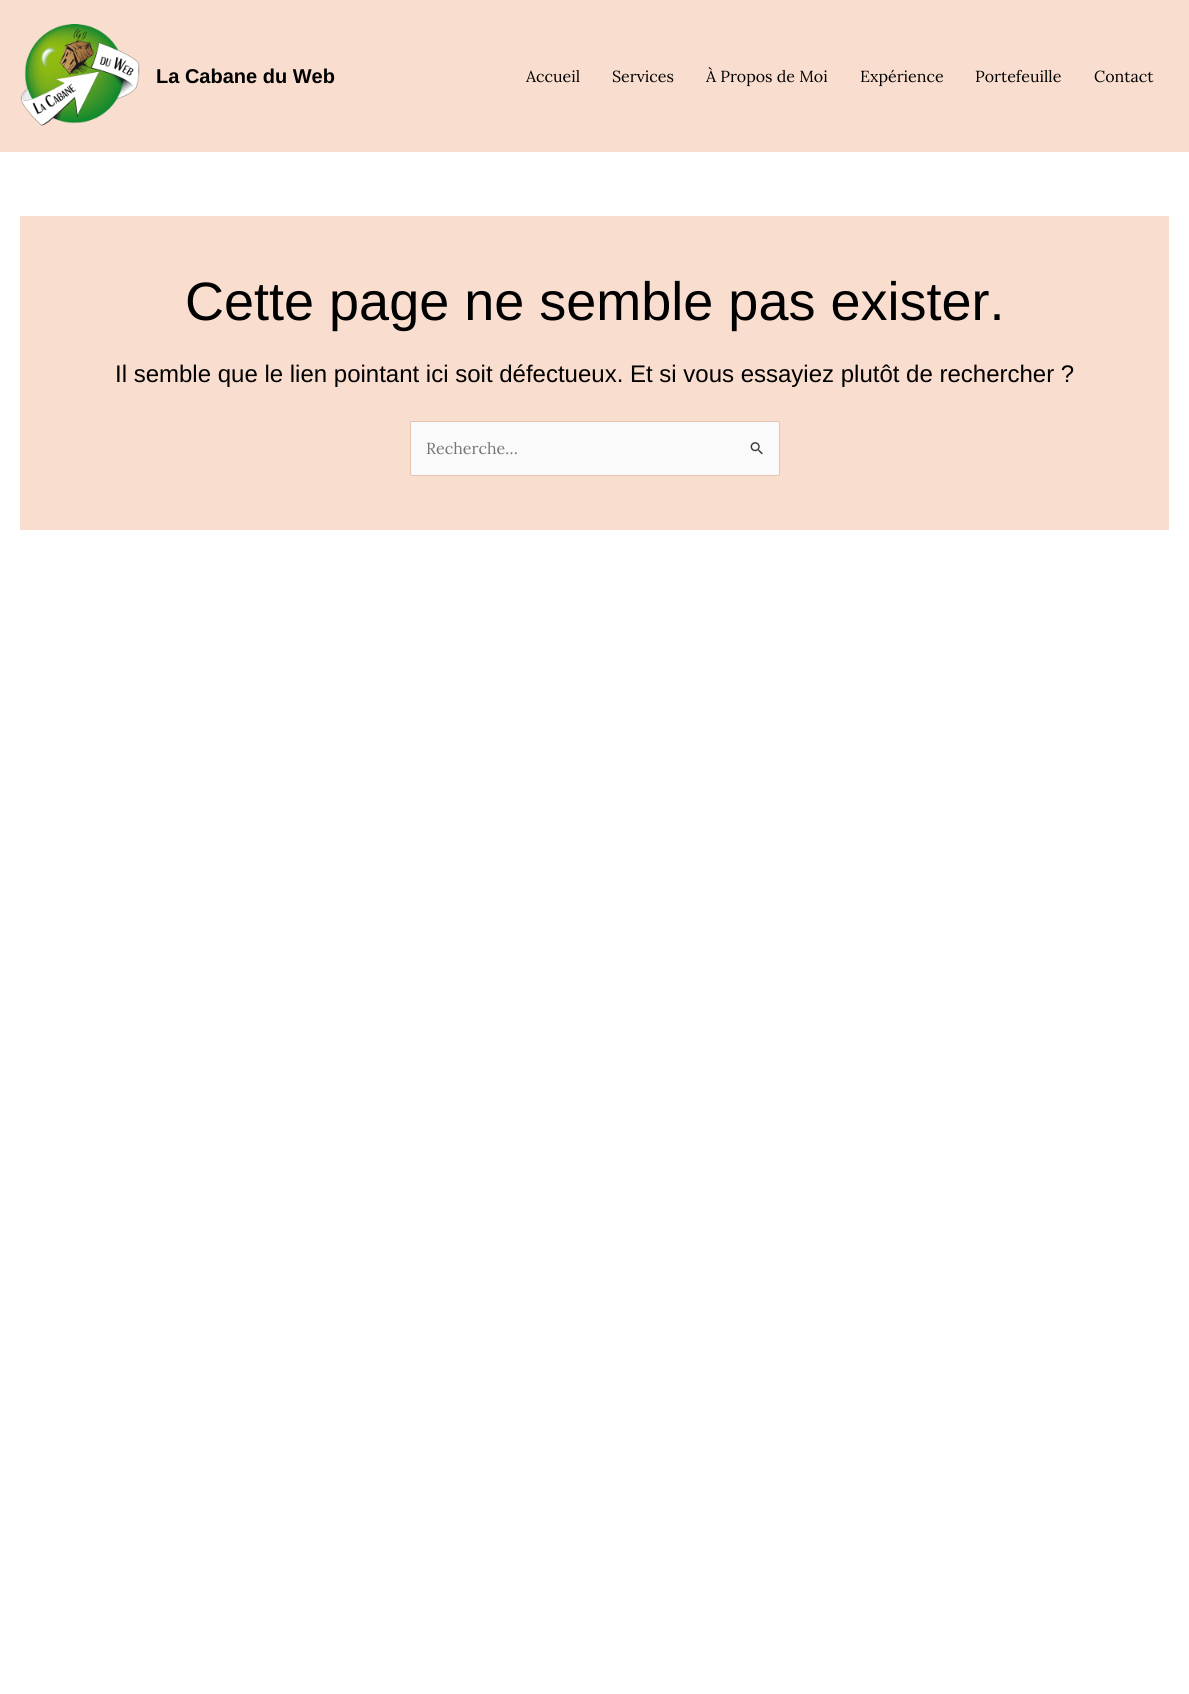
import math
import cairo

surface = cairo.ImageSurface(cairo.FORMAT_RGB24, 1189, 1694)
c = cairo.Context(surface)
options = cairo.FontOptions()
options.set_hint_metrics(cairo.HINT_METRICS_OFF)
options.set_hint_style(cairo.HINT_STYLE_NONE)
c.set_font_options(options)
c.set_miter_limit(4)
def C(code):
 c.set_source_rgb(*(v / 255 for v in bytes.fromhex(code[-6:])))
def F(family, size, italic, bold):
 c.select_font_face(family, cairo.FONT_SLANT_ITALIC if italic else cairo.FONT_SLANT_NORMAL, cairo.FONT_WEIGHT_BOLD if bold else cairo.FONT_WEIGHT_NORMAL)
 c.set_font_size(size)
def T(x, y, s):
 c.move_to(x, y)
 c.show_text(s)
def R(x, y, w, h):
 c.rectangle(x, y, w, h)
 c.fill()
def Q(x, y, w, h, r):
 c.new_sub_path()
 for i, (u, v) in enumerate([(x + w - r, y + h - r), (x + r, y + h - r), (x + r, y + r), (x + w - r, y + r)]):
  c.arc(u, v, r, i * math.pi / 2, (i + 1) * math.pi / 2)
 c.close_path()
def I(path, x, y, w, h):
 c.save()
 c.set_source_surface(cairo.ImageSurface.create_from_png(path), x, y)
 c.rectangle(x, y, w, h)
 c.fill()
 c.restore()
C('ffffff')
c.paint()
C('f9ddce')
R(0,0,1189,152)
I('1.png',20,24,120,102)
F('Liberation Sans',20,0,1)
C('000000')
T(156,83,'La Cabane du Web')
F('Lora',16,0,0)
T(526,82,'Accueil')
T(612,82,'Services')
T(706,82,'À Propos de Moi')
T(860,82,'Expérience')
T(975,82,'Portefeuille')
T(1094,82,'Contact')
C('f9ddce')
R(20,216,1149,314)
F('Liberation Sans',54,0,0)
C('000000')
T(185,320,'Cette page ne semble pas exister.')
F('Liberation Sans',24,0,0)
T(115,382,'Il semble que le lien pointant ici soit défectueux. Et si vous essayiez plutôt de rechercher ?')
C('fafafa')
Q(410.5,421.5,369,54,1.5)
c.fill_preserve()
C('e4c3b1')
c.set_line_width(1)
c.stroke()
F('Lora',16,0,0)
C('757575')
T(426,454,'Recherche…')
I('2.png',750,442,13,13)
surface.write_to_png('o.png')
